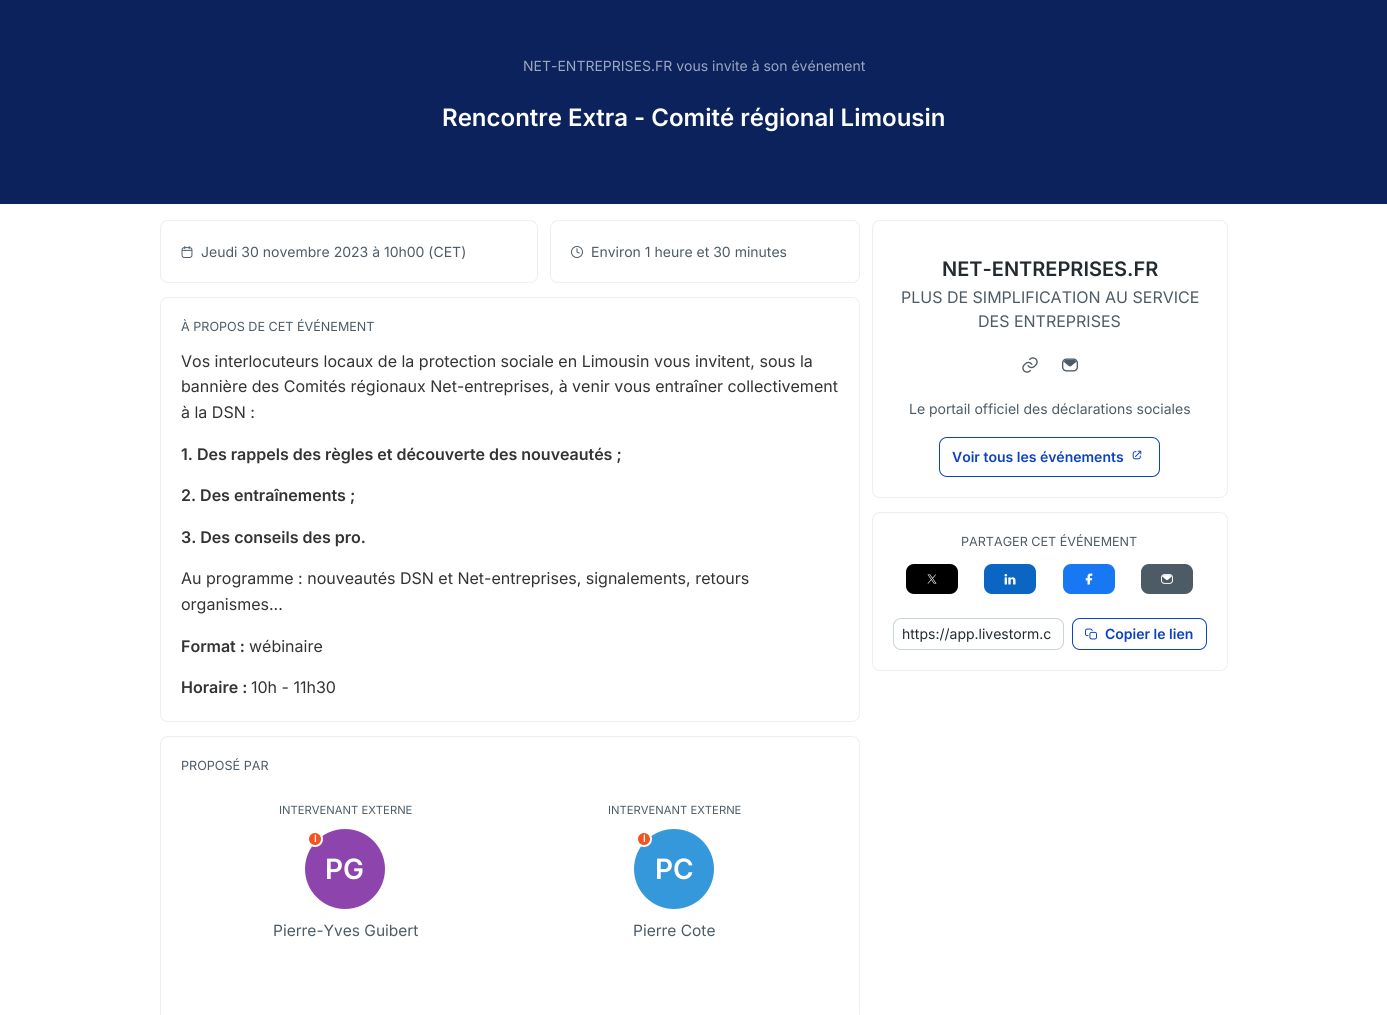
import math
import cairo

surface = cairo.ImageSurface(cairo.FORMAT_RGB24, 1387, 1015)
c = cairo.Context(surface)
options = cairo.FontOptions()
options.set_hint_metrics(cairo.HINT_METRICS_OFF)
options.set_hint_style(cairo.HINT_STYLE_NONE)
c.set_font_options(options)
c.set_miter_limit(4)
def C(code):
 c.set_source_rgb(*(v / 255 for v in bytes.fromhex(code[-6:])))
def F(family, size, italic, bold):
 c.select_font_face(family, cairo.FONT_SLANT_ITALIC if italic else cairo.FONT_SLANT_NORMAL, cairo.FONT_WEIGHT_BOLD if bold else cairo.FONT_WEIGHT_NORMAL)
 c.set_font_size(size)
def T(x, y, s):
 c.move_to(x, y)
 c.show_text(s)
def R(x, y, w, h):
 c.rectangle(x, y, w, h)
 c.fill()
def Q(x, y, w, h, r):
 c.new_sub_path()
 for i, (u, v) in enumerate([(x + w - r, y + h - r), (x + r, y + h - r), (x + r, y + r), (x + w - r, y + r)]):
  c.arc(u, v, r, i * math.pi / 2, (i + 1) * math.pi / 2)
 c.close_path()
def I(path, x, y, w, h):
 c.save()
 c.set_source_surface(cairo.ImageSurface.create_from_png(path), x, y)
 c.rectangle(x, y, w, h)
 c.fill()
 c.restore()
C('ffffff')
c.paint()
C('0b225d')
R(0,0,1387,204)
F('Inter',14,0,0)
C('9da7be')
T(523,71,'NET-ENTREPRISES.FR vous invite à son événement')
F('Inter SemiBold',24,0,0)
C('ffffff')
T(442,126,'Rencontre Extra - Comité régional Limousin')
Q(160.5,220.5,377,62,7.5)
C('eeeeee')
c.set_line_width(1)
c.stroke()
I('1.png',181,246,12,12)
F('Inter',14,0,0)
C('4d5b66')
T(201,257,'Jeudi 30 novembre 2023 à 10h00 (CET)')
Q(550.5,220.5,309,62,7.5)
C('eeeeee')
c.stroke()
I('2.png',571,246,12,12)
C('4d5b66')
T(591,257,'Environ 1 heure et 30 minutes')
Q(160.5,297.5,699,424,7.5)
C('eeeeee')
c.stroke()
F('Inter',12.6,0,0)
C('4d5b66')
T(181,331,'À PROPOS DE CET ÉVÉNEMENT')
F('Inter',16,0,0)
C('333333')
T(181,367,'Vos interlocuteurs locaux de la protection sociale en Limousin vous invitent, sous la')
T(181,392,'bannière des Comités régionaux Net-entreprises, à venir vous entraîner collectivement')
T(181,418,'à la DSN :')
F('Inter SemiBold',16,0,0)
T(181,460,'1. Des rappels des règles et découverte des nouveautés ;')
T(181,501,'2. Des entraînements ;')
T(181,543,'3. Des conseils des pro.')
F('Inter',16,0,0)
T(181,584,'Au programme : nouveautés DSN et Net-entreprises, signalements, retours')
T(181,610,'organismes...')
F('Inter SemiBold',16,0,0)
T(181,652,'Format :')
F('Inter',16,0,0)
T(249,652,'wébinaire')
F('Inter SemiBold',16,0,0)
T(181,693,'Horaire :')
F('Inter',16,0,0)
T(251,693,'10h - 11h30')
Q(160.5,736.5,699,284,7.5)
C('eeeeee')
c.stroke()
F('Inter',12.6,0,0)
C('4d5b66')
T(181,770,'PROPOSÉ PAR')
F('Inter',11.25,0,0)
T(279,814,'INTERVENANT EXTERNE')
C('8e44ad')
c.new_path()
c.arc(345,869,40,0,2 * math.pi)
c.fill()
C('f1541e')
c.arc(315,839,7,0,2 * math.pi)
c.fill_preserve()
C('ffffff')
c.set_line_width(2)
c.stroke()
F('Inter SemiBold',10,0,0)
T(314,842,'I')
F('Inter SemiBold',28,0,0)
T(325,879,'PG')
F('Inter',15.5,0,0)
C('4d5b66')
T(273,936,'Pierre-Yves Guibert')
F('Inter',11.25,0,0)
T(608,814,'INTERVENANT EXTERNE')
C('3498db')
c.new_path()
c.arc(674,869,40,0,2 * math.pi)
c.fill()
C('f1541e')
c.arc(644,839,7,0,2 * math.pi)
c.fill_preserve()
C('ffffff')
c.stroke()
F('Inter SemiBold',10,0,0)
T(643,842,'I')
F('Inter SemiBold',28,0,0)
T(655,879,'PC')
F('Inter',15.5,0,0)
C('4d5b66')
T(633,936,'Pierre Cote')
Q(872.5,220.5,355,277,7.5)
C('eeeeee')
c.set_line_width(1)
c.stroke()
F('Inter SemiBold',20,0,0)
C('232b2f')
T(942,276,'NET-ENTREPRISES.FR')
F('Inter',16,0,0)
C('4d5b66')
T(901,303,'PLUS DE SIMPLIFICATION AU SERVICE')
T(978,327,'DES ENTREPRISES')
I('3.png',1022,357,16,16)
I('4.png',1062,358,16,14)
F('Inter',14,0,0)
T(909,414,'Le portail officiel des déclarations sociales')
Q(939.5,437.5,220,39,7.5)
C('0b42c3')
c.stroke()
F('Inter SemiBold',14,0,0)
T(952,462,'Voir tous les événements')
I('5.png',1132,450,10,10)
Q(872.5,512.5,355,158,7.5)
C('eeeeee')
c.stroke()
F('Inter',12.6,0,0)
C('4d5b66')
T(961,546,'PARTAGER CET ÉVÉNEMENT')
C('000000')
Q(906,564,52,30,8)
c.fill()
I('6.png',927,574,10,10)
C('0a66c2')
Q(984,564,52,30,8)
c.fill()
I('7.png',1004,574,12,11)
C('1877f2')
Q(1063,564,52,30,8)
c.fill()
I('8.png',1085,573,8,12)
C('4d5b66')
Q(1141,564,52,30,8)
c.fill()
I('9.png',1161,574,12,10)
Q(893.5,618.5,170,31,7.5)
C('c8d3da')
c.stroke()
F('Inter',14,0,0)
C('232b2f')
T(902,639,'https://app.livestorm.c')
Q(1072.5,618.5,134,31,7.5)
C('0b42c3')
c.stroke()
I('10.png',1085,628,12,12)
F('Inter SemiBold',14,0,0)
T(1105,639,'Copier le lien')
surface.write_to_png('o.png')
